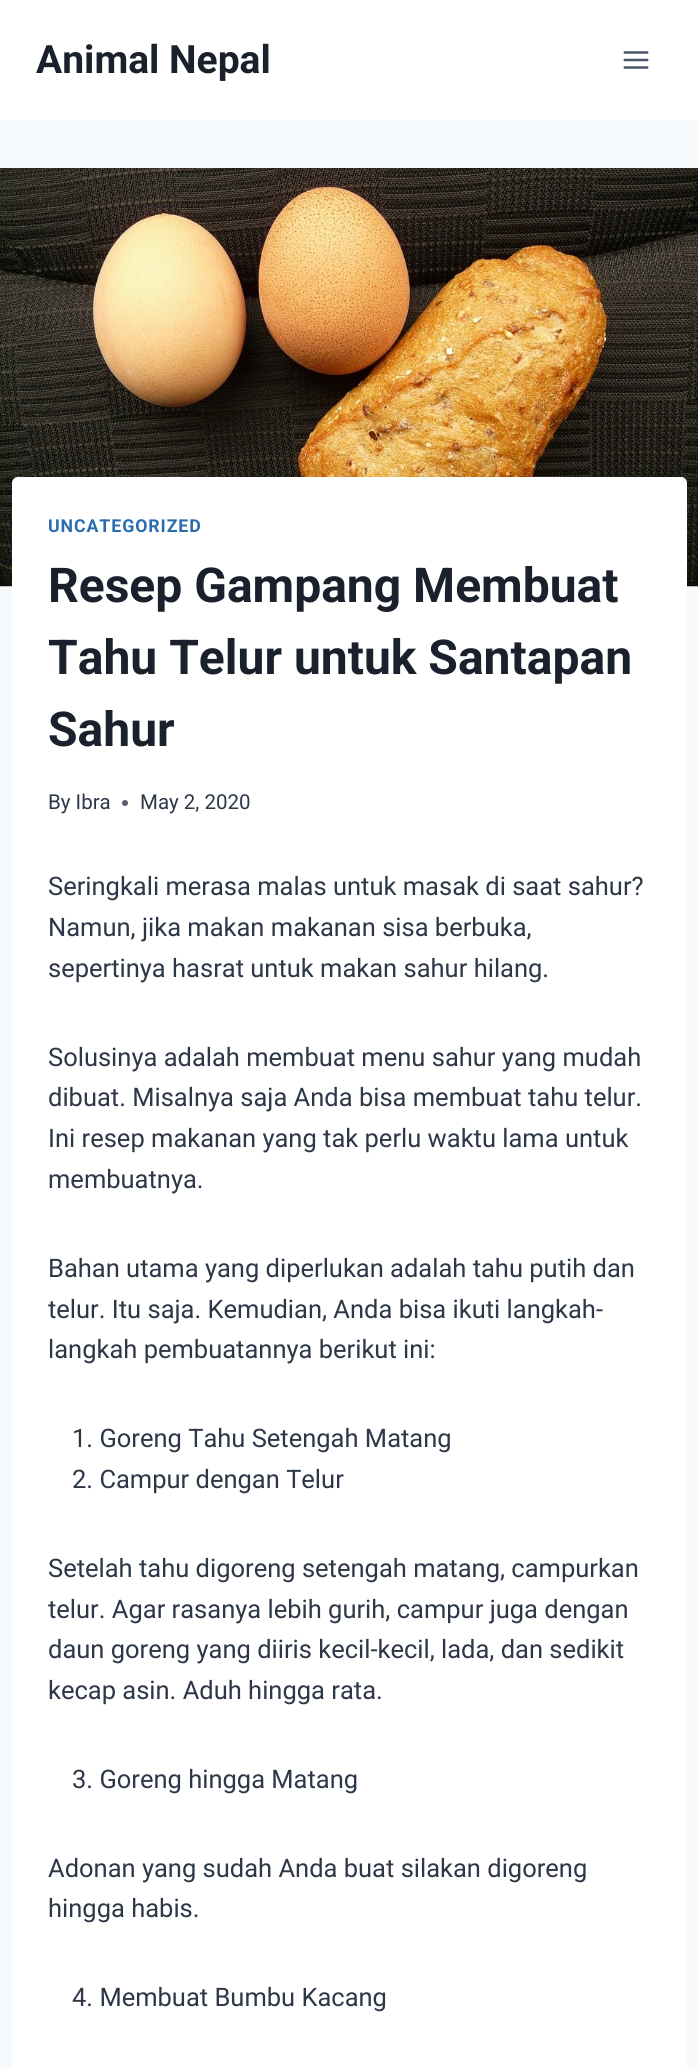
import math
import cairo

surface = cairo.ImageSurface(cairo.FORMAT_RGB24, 698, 2068)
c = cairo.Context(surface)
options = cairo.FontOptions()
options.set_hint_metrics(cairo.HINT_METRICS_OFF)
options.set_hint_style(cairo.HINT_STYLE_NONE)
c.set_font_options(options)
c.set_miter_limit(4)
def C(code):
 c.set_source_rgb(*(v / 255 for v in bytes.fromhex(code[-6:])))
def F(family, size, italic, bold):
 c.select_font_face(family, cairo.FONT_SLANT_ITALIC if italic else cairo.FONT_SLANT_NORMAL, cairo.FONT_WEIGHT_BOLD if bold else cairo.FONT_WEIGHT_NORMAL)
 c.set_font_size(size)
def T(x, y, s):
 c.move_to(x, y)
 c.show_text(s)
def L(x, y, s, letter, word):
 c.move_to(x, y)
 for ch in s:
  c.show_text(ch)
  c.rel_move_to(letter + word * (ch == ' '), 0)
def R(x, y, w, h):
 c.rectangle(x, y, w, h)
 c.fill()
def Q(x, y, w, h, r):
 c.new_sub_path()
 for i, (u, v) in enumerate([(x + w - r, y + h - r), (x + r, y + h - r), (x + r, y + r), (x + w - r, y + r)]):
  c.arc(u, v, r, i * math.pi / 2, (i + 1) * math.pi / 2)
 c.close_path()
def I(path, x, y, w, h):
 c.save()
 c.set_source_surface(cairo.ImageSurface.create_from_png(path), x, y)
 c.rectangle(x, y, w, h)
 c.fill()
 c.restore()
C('f7fafc')
c.paint()
C('ffffff')
R(0,0,698,120)
F('Roboto',39,0,1)
C('1a202c')
T(36,73,'Animal Nepal')
I('1.png',623,51,26,18)
I('2.png',0,168,698,419)
C('ffffff')
Q(12,477,675,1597,6)
c.fill()
F('Roboto',17.75,0,1)
C('2b6cb0')
L(48,532,'UNCATEGORIZED',.9,0)
F('Roboto',48,0,1)
C('1a202c')
T(48,602,'Resep Gampang Membuat')
T(48,674,'Tahu Telur untuk Santapan')
T(48,746,'Sahur')
F('Roboto',20.5,0,0)
C('2d3748')
T(48,809,'By Ibra')
C('575f6d')
c.new_path()
c.arc(125,803,3,0,2 * math.pi)
c.fill()
C('2d3748')
T(140,809,'May 2, 2020')
F('Roboto',25.5,0,0)
T(48,895,'Seringkali merasa malas untuk masak di saat sahur?')
T(48,936,'Namun, jika makan makanan sisa berbuka,')
T(48,977,'sepertinya hasrat untuk makan sahur hilang.')
T(48,1066,'Solusinya adalah membuat menu sahur yang mudah')
T(48,1106,'dibuat. Misalnya saja Anda bisa membuat tahu telur.')
T(48,1147,'Ini resep makanan yang tak perlu waktu lama untuk')
T(48,1188,'membuatnya.')
T(48,1277,'Bahan utama yang diperlukan adalah tahu putih dan')
T(48,1318,'telur. Itu saja. Kemudian, Anda bisa ikuti langkah-')
T(48,1358,'langkah pembuatannya berikut ini:')
T(72,1447,'1. Goreng Tahu Setengah Matang')
T(72,1488,'2. Campur dengan Telur')
T(48,1577,'Setelah tahu digoreng setengah matang, campurkan')
T(48,1618,'telur. Agar rasanya lebih gurih, campur juga dengan')
T(48,1658,'daun goreng yang diiris kecil-kecil, lada, dan sedikit')
T(48,1699,'kecap asin. Aduh hingga rata.')
T(72,1788,'3. Goreng hingga Matang')
T(48,1877,'Adonan yang sudah Anda buat silakan digoreng')
T(48,1917,'hingga habis.')
T(72,2006,'4. Membuat Bumbu Kacang')
surface.write_to_png('o.png')
